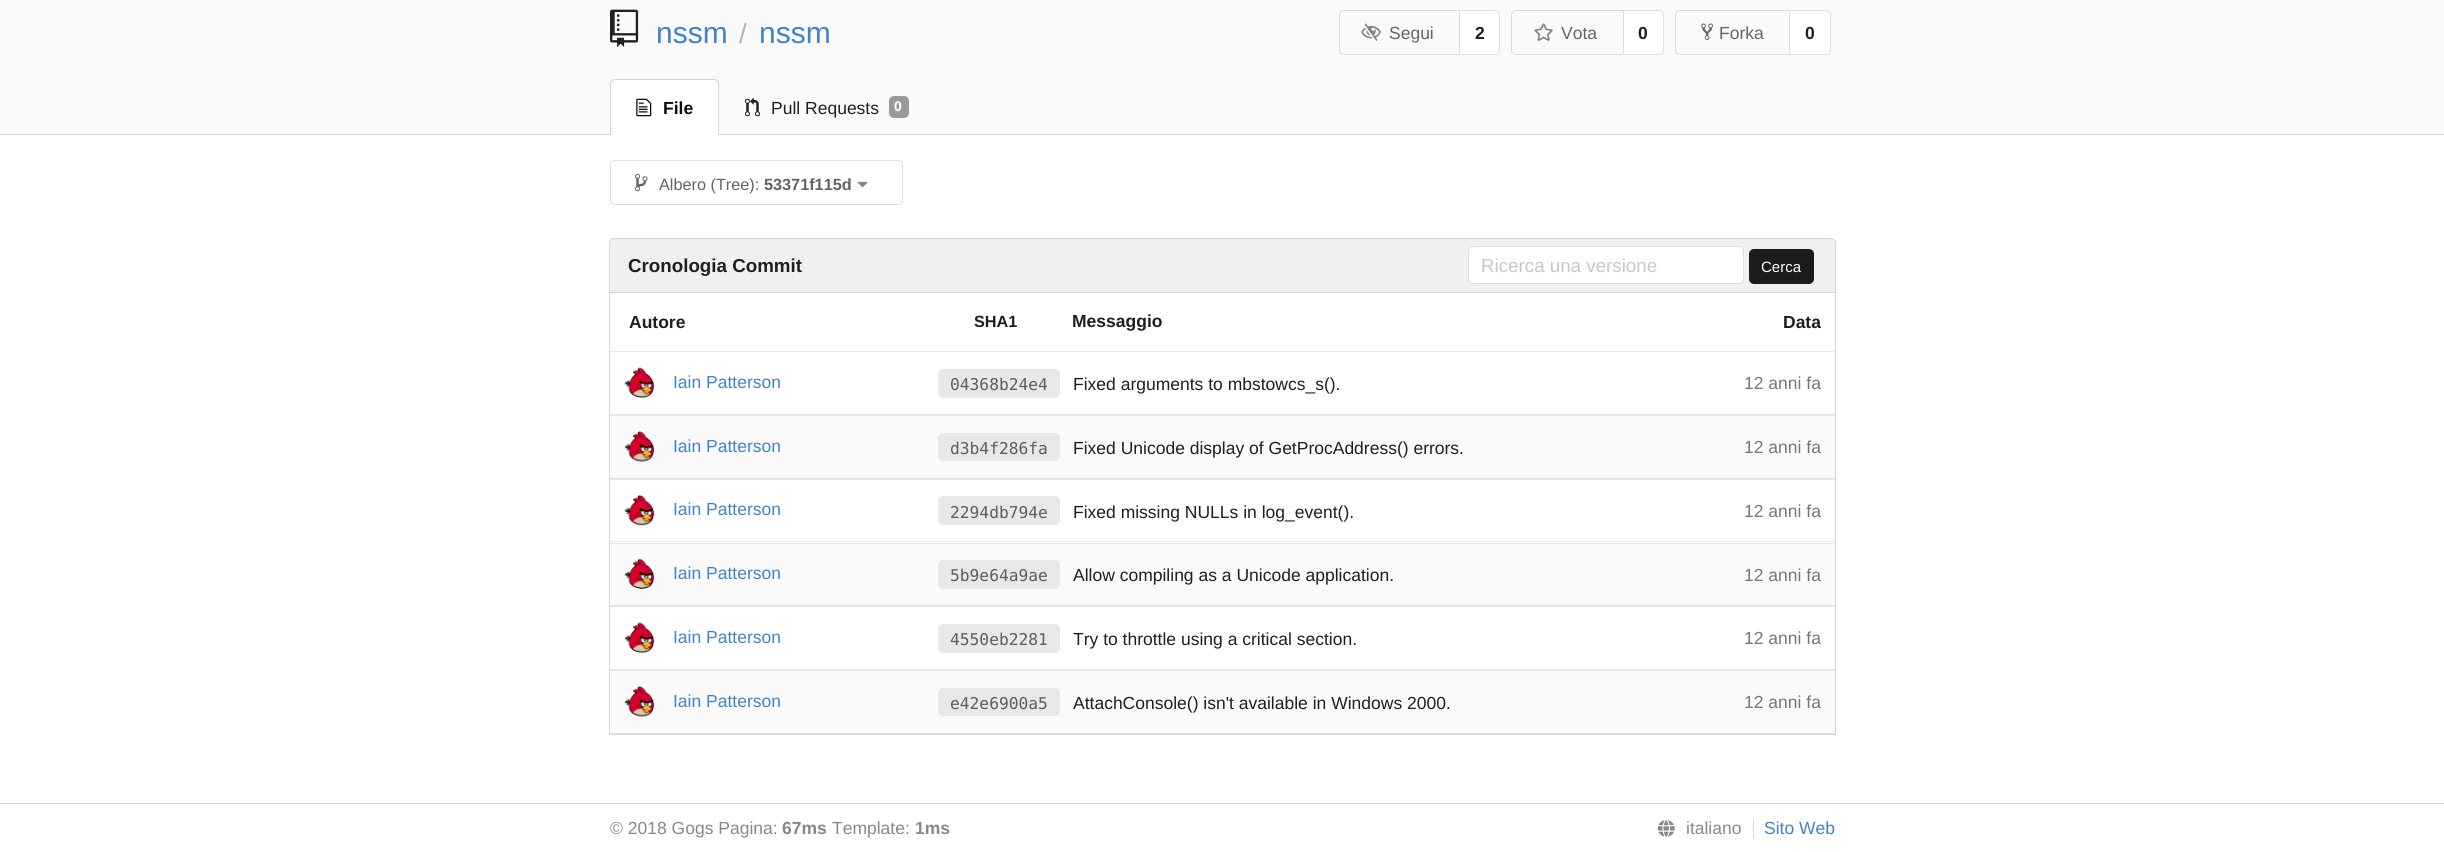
import math
import cairo

surface = cairo.ImageSurface(cairo.FORMAT_RGB24, 2444, 852)
c = cairo.Context(surface)
options = cairo.FontOptions()
options.set_hint_metrics(cairo.HINT_METRICS_OFF)
options.set_hint_style(cairo.HINT_STYLE_NONE)
c.set_font_options(options)
c.set_miter_limit(4)
def C(code):
 c.set_source_rgb(*(v / 255 for v in bytes.fromhex(code[-6:])))
def F(family, size, italic, bold):
 c.select_font_face(family, cairo.FONT_SLANT_ITALIC if italic else cairo.FONT_SLANT_NORMAL, cairo.FONT_WEIGHT_BOLD if bold else cairo.FONT_WEIGHT_NORMAL)
 c.set_font_size(size)
def T(x, y, s):
 c.move_to(x, y)
 c.show_text(s)
def R(x, y, w, h):
 c.rectangle(x, y, w, h)
 c.fill()
def Q(x, y, w, h, r):
 c.new_sub_path()
 for i, (u, v) in enumerate([(x + w - r, y + h - r), (x + r, y + h - r), (x + r, y + r), (x + w - r, y + r)]):
  c.arc(u, v, r, i * math.pi / 2, (i + 1) * math.pi / 2)
 c.close_path()
def I(path, x, y, w, h):
 c.save()
 c.set_source_surface(cairo.ImageSurface.create_from_png(path), x, y)
 c.rectangle(x, y, w, h)
 c.fill()
 c.restore()
C('ffffff')
c.paint()
C('fafafa')
R(0,0,2444,134)
I('1.png',610,9,29,38)
F('Liberation Sans',30,0,0)
C('4183c4')
T(656,43,'nssm')
F('Liberation Sans',28,0,0)
C('b4b4b4')
T(739,43,'/')
F('Liberation Sans',30,0,0)
C('4183c4')
T(759,43,'nssm')
c.new_path()
c.move_to(1344,10.5)
c.line_to(1459.5,10.5)
c.line_to(1459.5,54.5)
c.line_to(1344,54.5)
c.curve_to(1341.5,54.5,1339.5,52.5,1339.5,50)
c.line_to(1339.5,15)
c.curve_to(1339.5,12.5,1341.5,10.5,1344,10.5)
c.close_path()
C('dadada')
c.set_line_width(1)
c.stroke()
I('2.png',1361,23,20,18)
F('Liberation Sans',17.5,0,0)
C('646464')
T(1389,39,'Segui')
C('ffffff')
c.new_path()
c.move_to(1459.5,10.5)
c.line_to(1495,10.5)
c.curve_to(1497.5,10.5,1499.5,12.5,1499.5,15)
c.line_to(1499.5,50)
c.curve_to(1499.5,52.5,1497.5,54.5,1495,54.5)
c.line_to(1459.5,54.5)
c.close_path()
c.fill_preserve()
C('dedede')
c.stroke()
F('Liberation Sans',17.5,0,1)
C('1f1f1f')
T(1475,39,'2')
c.new_path()
c.move_to(1516,10.5)
c.line_to(1623.5,10.5)
c.line_to(1623.5,54.5)
c.line_to(1516,54.5)
c.curve_to(1513.5,54.5,1511.5,52.5,1511.5,50)
c.line_to(1511.5,15)
c.curve_to(1511.5,12.5,1513.5,10.5,1516,10.5)
c.close_path()
C('dadada')
c.stroke()
I('3.png',1534,23,19,18)
F('Liberation Sans',17.5,0,0)
C('646464')
T(1561,39,'Vota')
C('ffffff')
c.new_path()
c.move_to(1623.5,10.5)
c.line_to(1659,10.5)
c.curve_to(1661.5,10.5,1663.5,12.5,1663.5,15)
c.line_to(1663.5,50)
c.curve_to(1663.5,52.5,1661.5,54.5,1659,54.5)
c.line_to(1623.5,54.5)
c.close_path()
c.fill_preserve()
C('dedede')
c.stroke()
F('Liberation Sans',17.5,0,1)
C('1f1f1f')
T(1638,39,'0')
c.new_path()
c.move_to(1680,10.5)
c.line_to(1789.5,10.5)
c.line_to(1789.5,54.5)
c.line_to(1680,54.5)
c.curve_to(1677.5,54.5,1675.5,52.5,1675.5,50)
c.line_to(1675.5,15)
c.curve_to(1675.5,12.5,1677.5,10.5,1680,10.5)
c.close_path()
C('dadada')
c.stroke()
I('4.png',1701,23,12,17)
F('Liberation Sans',17.5,0,0)
C('646464')
T(1719,39,'Forka')
C('ffffff')
c.new_path()
c.move_to(1789.5,10.5)
c.line_to(1826,10.5)
c.curve_to(1828.5,10.5,1830.5,12.5,1830.5,15)
c.line_to(1830.5,50)
c.curve_to(1830.5,52.5,1828.5,54.5,1826,54.5)
c.line_to(1789.5,54.5)
c.close_path()
c.fill_preserve()
C('dedede')
c.stroke()
F('Liberation Sans',17.5,0,1)
C('1f1f1f')
T(1805,39,'0')
C('dadada')
R(0,134,2444,1)
C('ffffff')
c.new_path()
c.move_to(615,79)
c.line_to(714,79)
c.curve_to(717,79,719,81,719,84)
c.line_to(719,135)
c.line_to(610,135)
c.line_to(610,84)
c.curve_to(610,81,612,79,615,79)
c.close_path()
c.fill()
C('d4d4d5')
c.set_fill_rule(cairo.FILL_RULE_EVEN_ODD)
c.new_path()
c.move_to(615,79)
c.line_to(714,79)
c.curve_to(717,79,719,81,719,84)
c.line_to(719,135)
c.line_to(610,135)
c.line_to(610,84)
c.curve_to(610,81,612,79,615,79)
c.close_path()
c.move_to(615,80)
c.line_to(714,80)
c.curve_to(716,80,718,82,718,84)
c.line_to(718,135)
c.line_to(611,135)
c.line_to(611,84)
c.curve_to(611,82,613,80,615,80)
c.close_path()
c.fill()
I('5.png',636,98,16,19)
C('0d0d0d')
T(663,114,'File')
I('6.png',745,97,15,20)
F('Liberation Sans',17.5,0,0)
C('1f1f1f')
T(771,114,'Pull Requests')
C('999999')
Q(889,96,20,22,5)
c.fill()
F('Liberation Sans',14,0,1)
C('ffffff')
T(894,111,'0')
Q(610.5,160.5,292,44,4.5)
C('dedede')
c.stroke()
I('7.png',635,173,13,19)
F('Liberation Sans',16.25,0,0)
C('646464')
T(659,190,'Albero (Tree):')
F('Liberation Sans',16.25,0,1)
T(764,190,'53371f115d')
I('8.png',857,181,11,7)
C('f0f0f0')
c.new_path()
c.move_to(614,238.5)
c.line_to(1831,238.5)
c.curve_to(1833.5,238.5,1835.5,240.5,1835.5,243)
c.line_to(1835.5,292.5)
c.line_to(609.5,292.5)
c.line_to(609.5,243)
c.curve_to(609.5,240.5,611.5,238.5,614,238.5)
c.close_path()
c.fill_preserve()
C('d4d4d5')
c.stroke()
F('Liberation Sans',18.75,0,1)
C('1f1f1f')
T(628,272,'Cronologia Commit')
C('ffffff')
Q(1468,246,276,38,5)
c.fill()
Q(1468.5,246.5,275,37,4.5)
c.set_source_rgba(0.133,0.141,0.149,0.15)
c.stroke()
F('Liberation Sans',18.75,0,0)
C('c7c7c7')
T(1481,272,'Ricerca una versione')
C('1b1c1d')
Q(1749,249,65,35,5)
c.fill()
F('Liberation Sans',15,0,0)
C('ffffff')
T(1761,272,'Cerca')
C('d4d4d5')
R(1835,293,1,442)
R(609,734,1227,1)
R(609,293,1,442)
C('e9e9e9')
R(610,351,1225,1)
F('Liberation Sans',17.5,0,1)
C('1f1f1f')
T(629,328,'Autore')
F('Liberation Sans',16.25,0,1)
T(974,327,'SHA1')
F('Liberation Sans',17.5,0,1)
T(1072,327,'Messaggio')
T(1783,328,'Data')
C('e6e6e6')
R(610,414,1225,1)
I('9.png',624,367,30,31)
F('Liberation Sans',17.5,0,0)
C('4183c4')
T(673,388,'Iain Patterson')
C('e8e8e8')
Q(938,369,122,29,5)
c.fill()
F('DejaVu Sans Mono',16.25,0,0)
C('5d5d5d')
T(950,390,'04368b24e4')
F('Liberation Sans',17.5,0,0)
C('1f1f1f')
T(1073,390,'Fixed arguments to mbstowcs_s().')
C('767676')
T(1744,389,'12 anni fa')
C('fafafa')
R(610,416,1225,62)
C('e1e1e1')
R(610,478,1225,1)
C('e4e5e5')
R(610,415,1225,1)
I('10.png',624,431,30,31)
C('4183c4')
T(673,452,'Iain Patterson')
C('e8e8e8')
Q(938,433,122,28,5)
c.fill()
F('DejaVu Sans Mono',16.25,0,0)
C('5d5d5d')
T(950,454,'d3b4f286fa')
F('Liberation Sans',17.5,0,0)
C('1f1f1f')
T(1073,454,'Fixed Unicode display of GetProcAddress() errors.')
C('767676')
T(1744,453,'12 anni fa')
C('e6e6e6')
R(610,541,1225,1)
C('e9e9e9')
R(610,479,1225,1)
I('11.png',624,495,30,31)
C('4183c4')
T(673,515,'Iain Patterson')
C('e8e8e8')
Q(938,496,122,29,5)
c.fill()
F('DejaVu Sans Mono',16.25,0,0)
C('5d5d5d')
T(950,518,'2294db794e')
F('Liberation Sans',17.5,0,0)
C('1f1f1f')
T(1073,518,'Fixed missing NULLs in log_event().')
C('767676')
T(1744,517,'12 anni fa')
C('fafafa')
R(610,544,1225,61)
C('e1e1e1')
R(610,605,1225,1)
C('e4e5e5')
R(610,543,1225,1)
I('12.png',624,558,30,31)
C('4183c4')
T(673,579,'Iain Patterson')
C('e8e8e8')
Q(938,560,122,29,5)
c.fill()
F('DejaVu Sans Mono',16.25,0,0)
C('5d5d5d')
T(950,581,'5b9e64a9ae')
F('Liberation Sans',17.5,0,0)
C('1f1f1f')
T(1073,581,'Allow compiling as a Unicode application.')
C('767676')
T(1744,581,'12 anni fa')
C('e6e6e6')
R(610,669,1225,1)
C('e9e9e9')
R(610,606,1225,1)
I('9.png',624,622,30,31)
C('4183c4')
T(673,643,'Iain Patterson')
C('e8e8e8')
Q(938,624,122,29,5)
c.fill()
F('DejaVu Sans Mono',16.25,0,0)
C('5d5d5d')
T(950,645,'4550eb2281')
F('Liberation Sans',17.5,0,0)
C('1f1f1f')
T(1073,645,'Try to throttle using a critical section.')
C('767676')
T(1744,644,'12 anni fa')
C('fafafa')
R(610,671,1225,62)
C('e1e1e1')
R(610,733,1225,1)
C('e4e5e5')
R(610,670,1225,1)
I('10.png',624,686,30,31)
C('4183c4')
T(673,707,'Iain Patterson')
C('e8e8e8')
Q(938,688,122,28,5)
c.fill()
F('DejaVu Sans Mono',16.25,0,0)
C('5d5d5d')
T(950,709,'e42e6900a5')
F('Liberation Sans',17.5,0,0)
C('1f1f1f')
T(1073,709,'AttachConsole() isn\'t available in Windows 2000.')
C('767676')
T(1744,708,'12 anni fa')
C('d6d6d6')
R(0,803,2444,1)
C('888888')
T(610,834,'© 2018 Gogs Pagina:')
F('Liberation Sans',17.5,0,1)
T(782,834,'67ms')
F('Liberation Sans',17.5,0,0)
T(832,834,'Template:')
F('Liberation Sans',17.5,0,1)
T(915,834,'1ms')
I('13.png',1657,820,18,17)
F('Liberation Sans',17.5,0,0)
T(1686,834,'italiano')
C('4183c4')
T(1764,834,'Sito Web')
C('d6d6d6')
R(1753,819,1,20)
surface.write_to_png('o.png')
